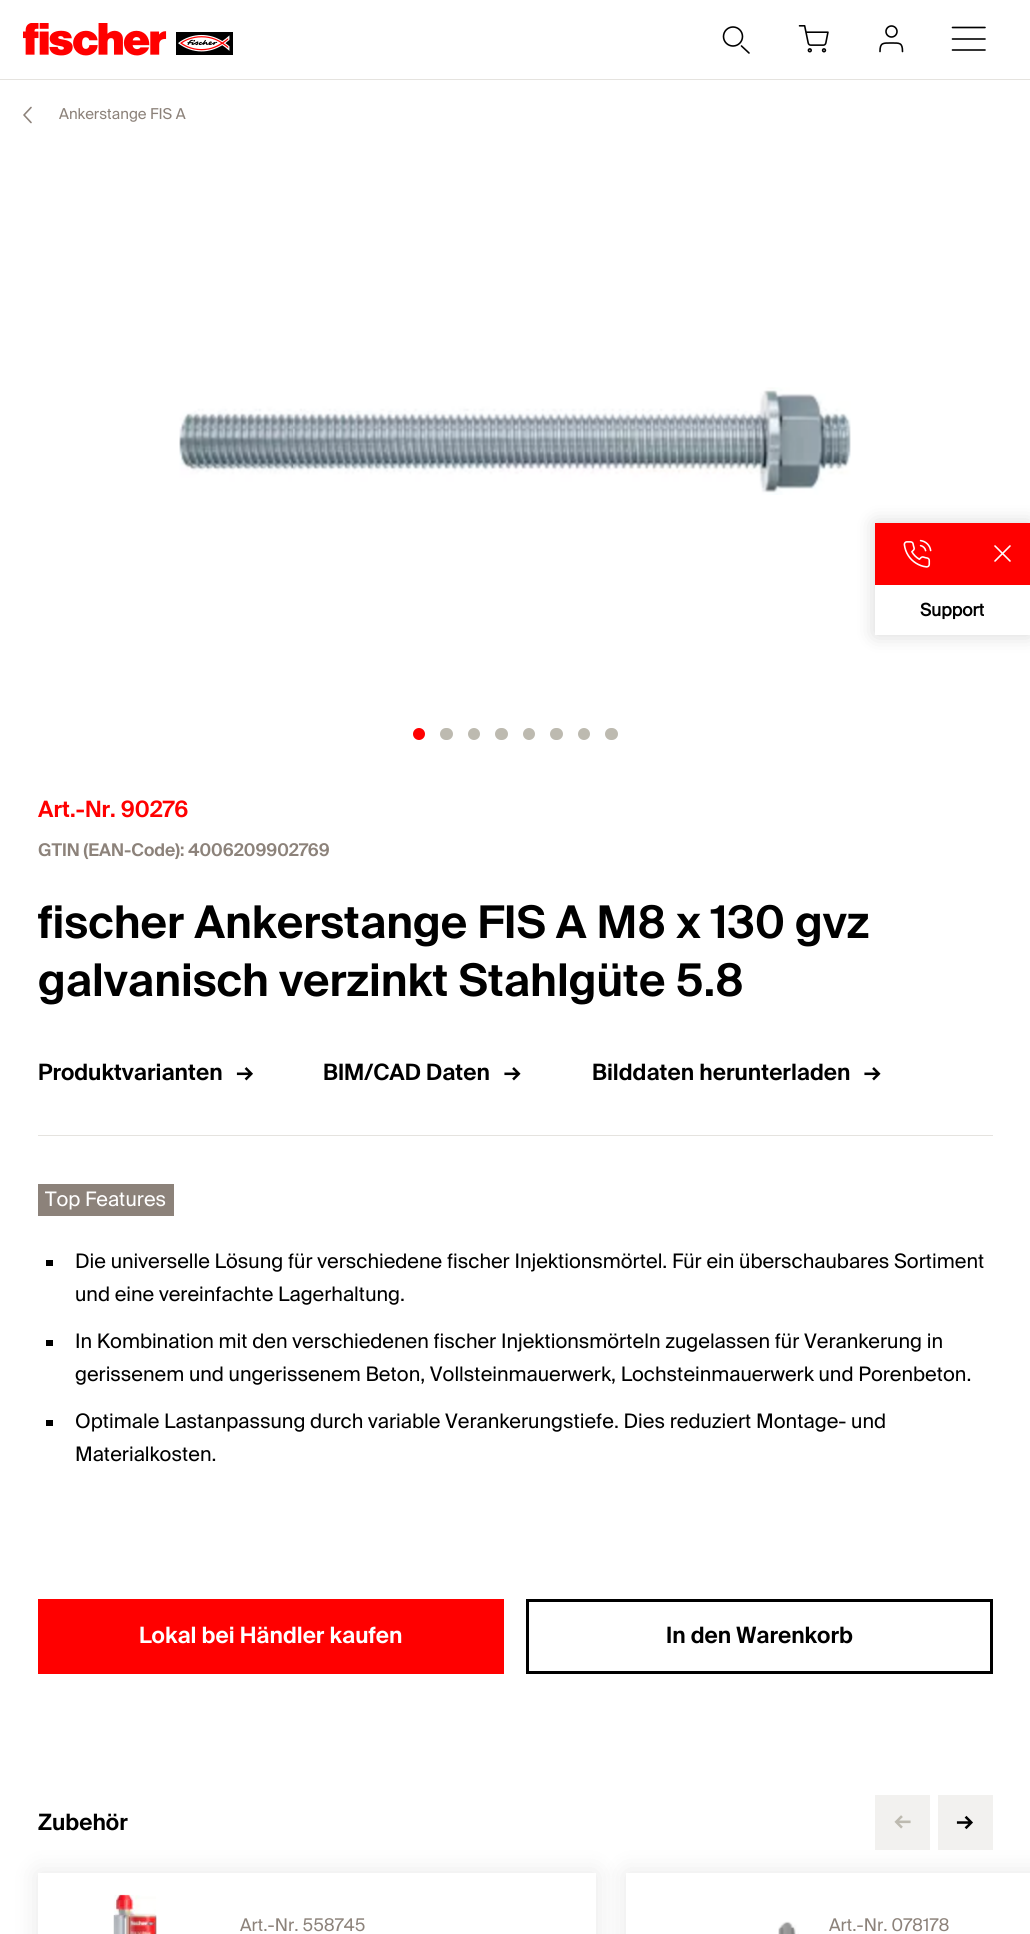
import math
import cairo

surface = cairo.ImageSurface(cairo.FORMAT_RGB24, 1030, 1934)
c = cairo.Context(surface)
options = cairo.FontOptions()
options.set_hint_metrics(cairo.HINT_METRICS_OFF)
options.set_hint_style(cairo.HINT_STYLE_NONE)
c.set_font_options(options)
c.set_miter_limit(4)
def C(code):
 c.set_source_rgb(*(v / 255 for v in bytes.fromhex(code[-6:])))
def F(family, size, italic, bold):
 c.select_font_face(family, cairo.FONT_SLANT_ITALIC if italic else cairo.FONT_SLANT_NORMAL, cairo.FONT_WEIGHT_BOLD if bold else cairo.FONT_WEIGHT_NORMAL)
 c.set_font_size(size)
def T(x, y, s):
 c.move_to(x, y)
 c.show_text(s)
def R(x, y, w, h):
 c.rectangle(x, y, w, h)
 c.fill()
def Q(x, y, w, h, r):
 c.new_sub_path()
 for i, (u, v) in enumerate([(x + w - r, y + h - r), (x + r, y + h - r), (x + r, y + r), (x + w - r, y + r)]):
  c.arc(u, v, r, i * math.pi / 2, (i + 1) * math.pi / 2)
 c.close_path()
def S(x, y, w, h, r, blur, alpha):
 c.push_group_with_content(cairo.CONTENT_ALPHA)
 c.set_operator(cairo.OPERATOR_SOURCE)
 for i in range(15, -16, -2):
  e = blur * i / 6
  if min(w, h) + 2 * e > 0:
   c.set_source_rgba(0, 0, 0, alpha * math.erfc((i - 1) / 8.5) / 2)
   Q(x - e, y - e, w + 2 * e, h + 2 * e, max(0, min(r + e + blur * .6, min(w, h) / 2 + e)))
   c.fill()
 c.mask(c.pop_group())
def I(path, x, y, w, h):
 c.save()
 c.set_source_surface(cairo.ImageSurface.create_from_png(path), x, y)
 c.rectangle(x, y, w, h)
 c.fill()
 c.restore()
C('ffffff')
c.paint()
C('e5e3df')
R(0,79,1030,1)
I('1.png',23,23,210,33)
c.arc(733,36.5,9.5,0,2 * math.pi)
C('000000')
c.set_line_width(1.6)
c.stroke()
c.new_path()
c.move_to(749,53)
c.line_to(741.5,46)
c.set_line_cap(cairo.LINE_CAP_ROUND)
c.stroke()
I('2.png',798,25,31,28)
c.new_path()
c.move_to(902.5,51.5)
c.curve_to(902.5,42.5,899.5,43,891.5,43)
c.curve_to(883,43,880,42.5,880,51.5)
c.set_line_join(cairo.LINE_JOIN_ROUND)
c.stroke()
c.arc(891.5,31.5,5.5,0,2 * math.pi)
c.set_line_cap(cairo.LINE_CAP_BUTT)
c.set_line_join(cairo.LINE_JOIN_MITER)
c.stroke()
c.new_path()
c.move_to(952.5,39)
c.line_to(985,39)
c.move_to(952.5,27.5)
c.line_to(985,27.5)
c.move_to(952.5,50)
c.line_to(985,50)
c.set_line_cap(cairo.LINE_CAP_ROUND)
c.set_line_join(cairo.LINE_JOIN_ROUND)
c.stroke()
c.new_path()
c.move_to(31,107.5)
c.line_to(24,115)
c.line_to(31,122.5)
C('8c827a')
c.stroke()
F('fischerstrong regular',15,0,0)
T(59,119,'Ankerstange FIS A')
I('4.png',179,387,672,108)
c.save()
c.set_fill_rule(cairo.FILL_RULE_EVEN_ODD)
c.new_path()
c.move_to(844,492)
c.line_to(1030,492)
c.line_to(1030,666)
c.line_to(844,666)
c.close_path()
c.move_to(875,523)
c.line_to(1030,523)
c.line_to(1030,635)
c.line_to(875,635)
c.close_path()
c.clip()
C('000000')
S(875,523,155,112,0,10,.16)
c.restore()
C('ff0000')
R(875,523,155,62)
I('3.png',903,539,29,29)
c.new_path()
c.move_to(1010,546)
c.line_to(995,561)
c.move_to(995,546)
c.line_to(1010,561)
C('ffffff')
c.stroke()
F('fischerstrong regular',17.5,0,1)
C('000000')
T(920,616,'Support')
C('ff0000')
c.new_path()
c.arc(419,734,6,0,2 * math.pi)
c.fill()
C('bdbab0')
Q(440,728,13,12,6)
c.fill()
c.arc(474,734,6,0,2 * math.pi)
c.fill()
Q(495,728,13,12,6)
c.fill()
c.arc(529,734,6,0,2 * math.pi)
c.fill()
Q(550,728,13,12,6)
c.fill()
c.arc(584,734,6,0,2 * math.pi)
c.fill()
Q(605,728,13,12,6)
c.fill()
F('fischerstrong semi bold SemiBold',22.5,0,0)
C('ff0000')
T(38,817,'Art.-Nr. 90276')
F('fischerstrong semi bold SemiBold',17.5,0,0)
C('8c827a')
T(38,856,'GTIN (EAN-Code): 4006209902769')
F('fischerstrong semi bold SemiBold',45,0,0)
C('000000')
T(38,938,'fischer Ankerstange FIS A M8 x 130 gvz')
T(38,996,'galvanisch verzinkt Stahlgüte 5.8')
C('e5e3df')
R(38,1135,955,1)
F('fischerstrong semi bold SemiBold',22.5,0,0)
C('000000')
T(38,1080,'Produktvarianten')
I('5.png',236,1067,17,14)
T(323,1080,'BIM/CAD Daten')
I('6.png',504,1067,17,14)
T(592,1080,'Bilddaten herunterladen')
I('6.png',864,1067,17,14)
C('8c827a')
R(38,1184,136,32)
F('fischerstrong regular',20,0,0)
C('ffffff')
T(45,1206,'Top Features')
C('000000')
R(46,1260,7,6)
T(75,1268,'Die universelle Lösung für verschiedene fischer Injektionsmörtel. Für ein überschaubares Sortiment')
T(75,1301,'und eine vereinfachte Lagerhaltung.')
R(46,1340,7,6)
T(75,1348,'In Kombination mit den verschiedenen fischer Injektionsmörteln zugelassen für Verankerung in')
T(75,1381,'gerissenem und ungerissenem Beton, Vollsteinmauerwerk, Lochsteinmauerwerk und Porenbeton.')
R(46,1420,7,6)
T(75,1428,'Optimale Lastanpassung durch variable Verankerungstiefe. Dies reduziert Montage- und')
T(75,1461,'Materialkosten.')
C('ff0000')
R(38,1599,466,75)
F('fischerstrong semi bold SemiBold',22.5,0,0)
C('ffffff')
T(139,1643,'Lokal bei Händler kaufen')
c.rectangle(527.5,1600.5,464,72)
C('000000')
c.set_line_width(3)
c.set_line_cap(cairo.LINE_CAP_BUTT)
c.set_line_join(cairo.LINE_JOIN_MITER)
c.stroke()
T(666,1643,'In den Warenkorb')
T(38,1830,'Zubehör')
C('000000')
S(626,1873,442,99,0,12.5,.1)
C('f2f1ef')
R(875,1795,55,55)
I('7.png',894,1815,17,14)
R(938,1795,55,55)
I('8.png',956,1815,17,15)
c.save()
c.set_fill_rule(cairo.FILL_RULE_EVEN_ODD)
c.new_path()
c.move_to(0,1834)
c.line_to(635,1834)
c.line_to(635,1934)
c.line_to(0,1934)
c.close_path()
c.move_to(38,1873)
c.line_to(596,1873)
c.line_to(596,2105)
c.line_to(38,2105)
c.close_path()
c.clip()
C('000000')
S(38,1873,558,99,0,12.5,.1)
c.restore()
I('9.png',113,1894,44,40)
F('fischerstrong regular',17.5,0,0)
C('8c827a')
T(240,1931,'Art.-Nr. 558745')
C('ffffff')
R(626,1873,404,61)
I('10.png',778,1921,21,13)
C('8c827a')
T(829,1931,'Art.-Nr. 078178')
surface.write_to_png('o.png')
